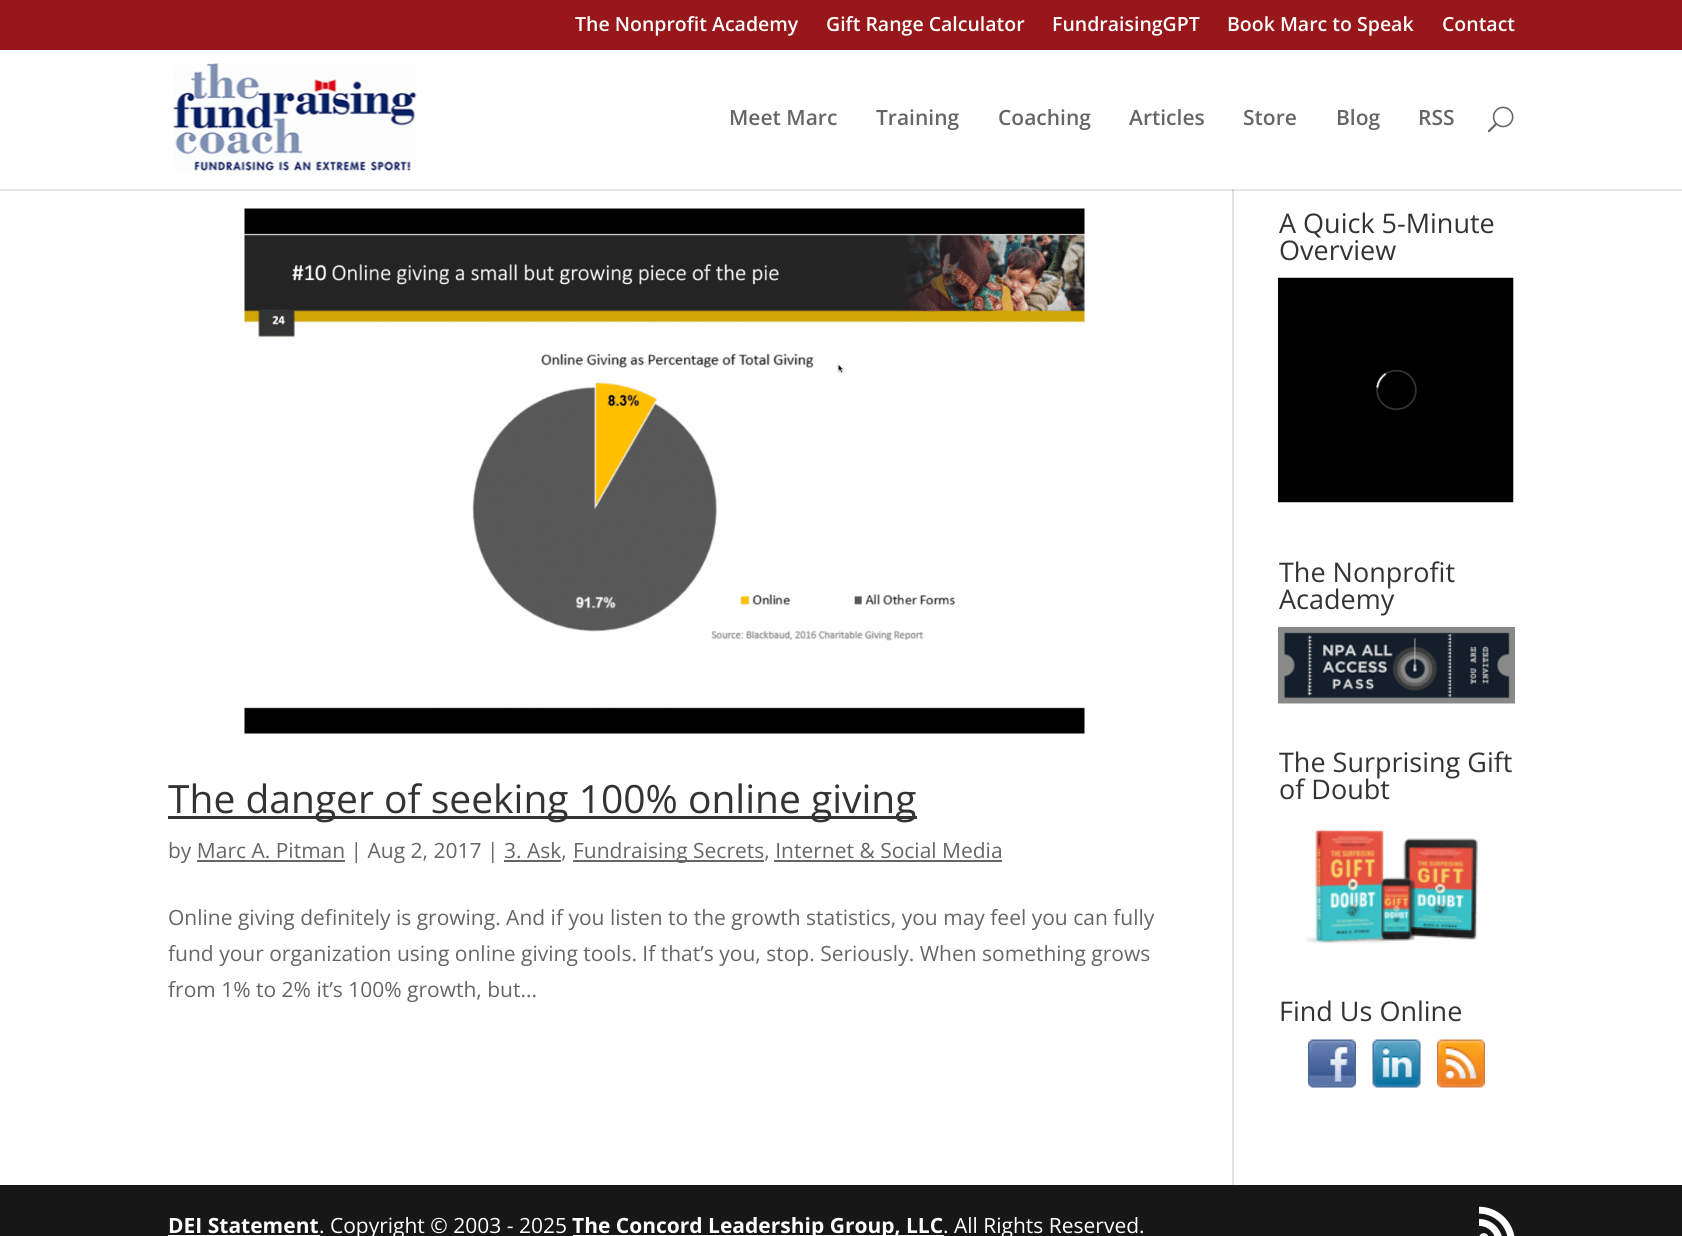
import math
import cairo

surface = cairo.ImageSurface(cairo.FORMAT_RGB24, 1682, 1236)
c = cairo.Context(surface)
options = cairo.FontOptions()
options.set_hint_metrics(cairo.HINT_METRICS_OFF)
options.set_hint_style(cairo.HINT_STYLE_NONE)
c.set_font_options(options)
c.set_miter_limit(4)
def C(code):
 c.set_source_rgb(*(v / 255 for v in bytes.fromhex(code[-6:])))
def F(family, size, italic, bold):
 c.select_font_face(family, cairo.FONT_SLANT_ITALIC if italic else cairo.FONT_SLANT_NORMAL, cairo.FONT_WEIGHT_BOLD if bold else cairo.FONT_WEIGHT_NORMAL)
 c.set_font_size(size)
def T(x, y, s):
 c.move_to(x, y)
 c.show_text(s)
def R(x, y, w, h):
 c.rectangle(x, y, w, h)
 c.fill()
def I(path, x, y, w, h):
 c.save()
 c.set_source_surface(cairo.ImageSurface.create_from_png(path), x, y)
 c.rectangle(x, y, w, h)
 c.fill()
 c.restore()
C('ffffff')
c.paint()
C('e6e6e6')
R(0,189,1682,2)
C('98171a')
R(0,0,1682,50)
F('Open Sans SemiBold',19.5,0,0)
C('ffffff')
T(575,31,'The Nonprofit Academy')
T(826,31,'Gift Range Calculator')
T(1052,31,'FundraisingGPT')
T(1227,31,'Book Marc to Speak')
T(1442,31,'Contact')
I('1.png',173,63,244,108)
F('Open Sans SemiBold',21,0,0)
C('666666')
T(729,125,'Meet Marc')
T(876,125,'Training')
T(998,125,'Coaching')
T(1129,125,'Articles')
T(1243,125,'Store')
T(1336,125,'Blog')
T(1418,125,'RSS')
I('2.png',1487,106,27,27)
C('e2e2e2')
R(1232,191,2,994)
C('cbcbcb')
R(1232,189,2,2)
I('3.png',244,208,841,526)
C('333333')
R(168,816,749,3)
F('Open Sans',39,0,0)
T(168,813,'The danger of seeking 100% online giving')
F('Open Sans',21,0,0)
C('666666')
T(168,858,'by Marc A. Pitman | Aug 2, 2017 | 3. Ask,')
R(573,860,191,2)
T(573,858,'Fundraising Secrets, Internet & Social Media')
R(197,860,148,2)
R(504,860,57,2)
R(774,860,228,2)
T(168,925,'Online giving definitely is growing. And if you listen to the growth statistics, you may feel you can fully')
T(168,961,'fund your organization using online giving tools. If that’s you, stop. Seriously. When something grows')
T(168,997,'from 1% to 2% it’s 100% growth, but...')
F('Open Sans',27,0,0)
C('333333')
T(1279,233,'A Quick 5-Minute')
T(1279,260,'Overview')
I('4.png',1278,277,236,226)
T(1279,582,'The Nonprofit')
T(1279,609,'Academy')
I('5.png',1278,627,237,77)
T(1279,772,'The Surprising Gift')
T(1279,799,'of Doubt')
I('6.png',1306,829,172,115)
T(1279,1021,'Find Us Online')
I('7.png',1308,1039,48,49)
I('8.png',1372,1039,49,49)
I('9.png',1437,1039,48,49)
C('171717')
R(0,1185,1682,51)
F('Open Sans',21,0,1)
C('ffffff')
T(168,1233,'DEI Statement')
R(168,1235,152,1)
F('Open Sans',21,0,0)
T(319,1233,'. Copyright © 2003 - 2025')
R(573,1235,371,1)
F('Open Sans',21,0,1)
T(572,1233,'The Concord Leadership Group, LLC')
F('Open Sans',21,0,0)
T(943,1233,'. All Rights Reserved.')
I('10.png',1479,1206,36,30)
surface.write_to_png('o.png')
